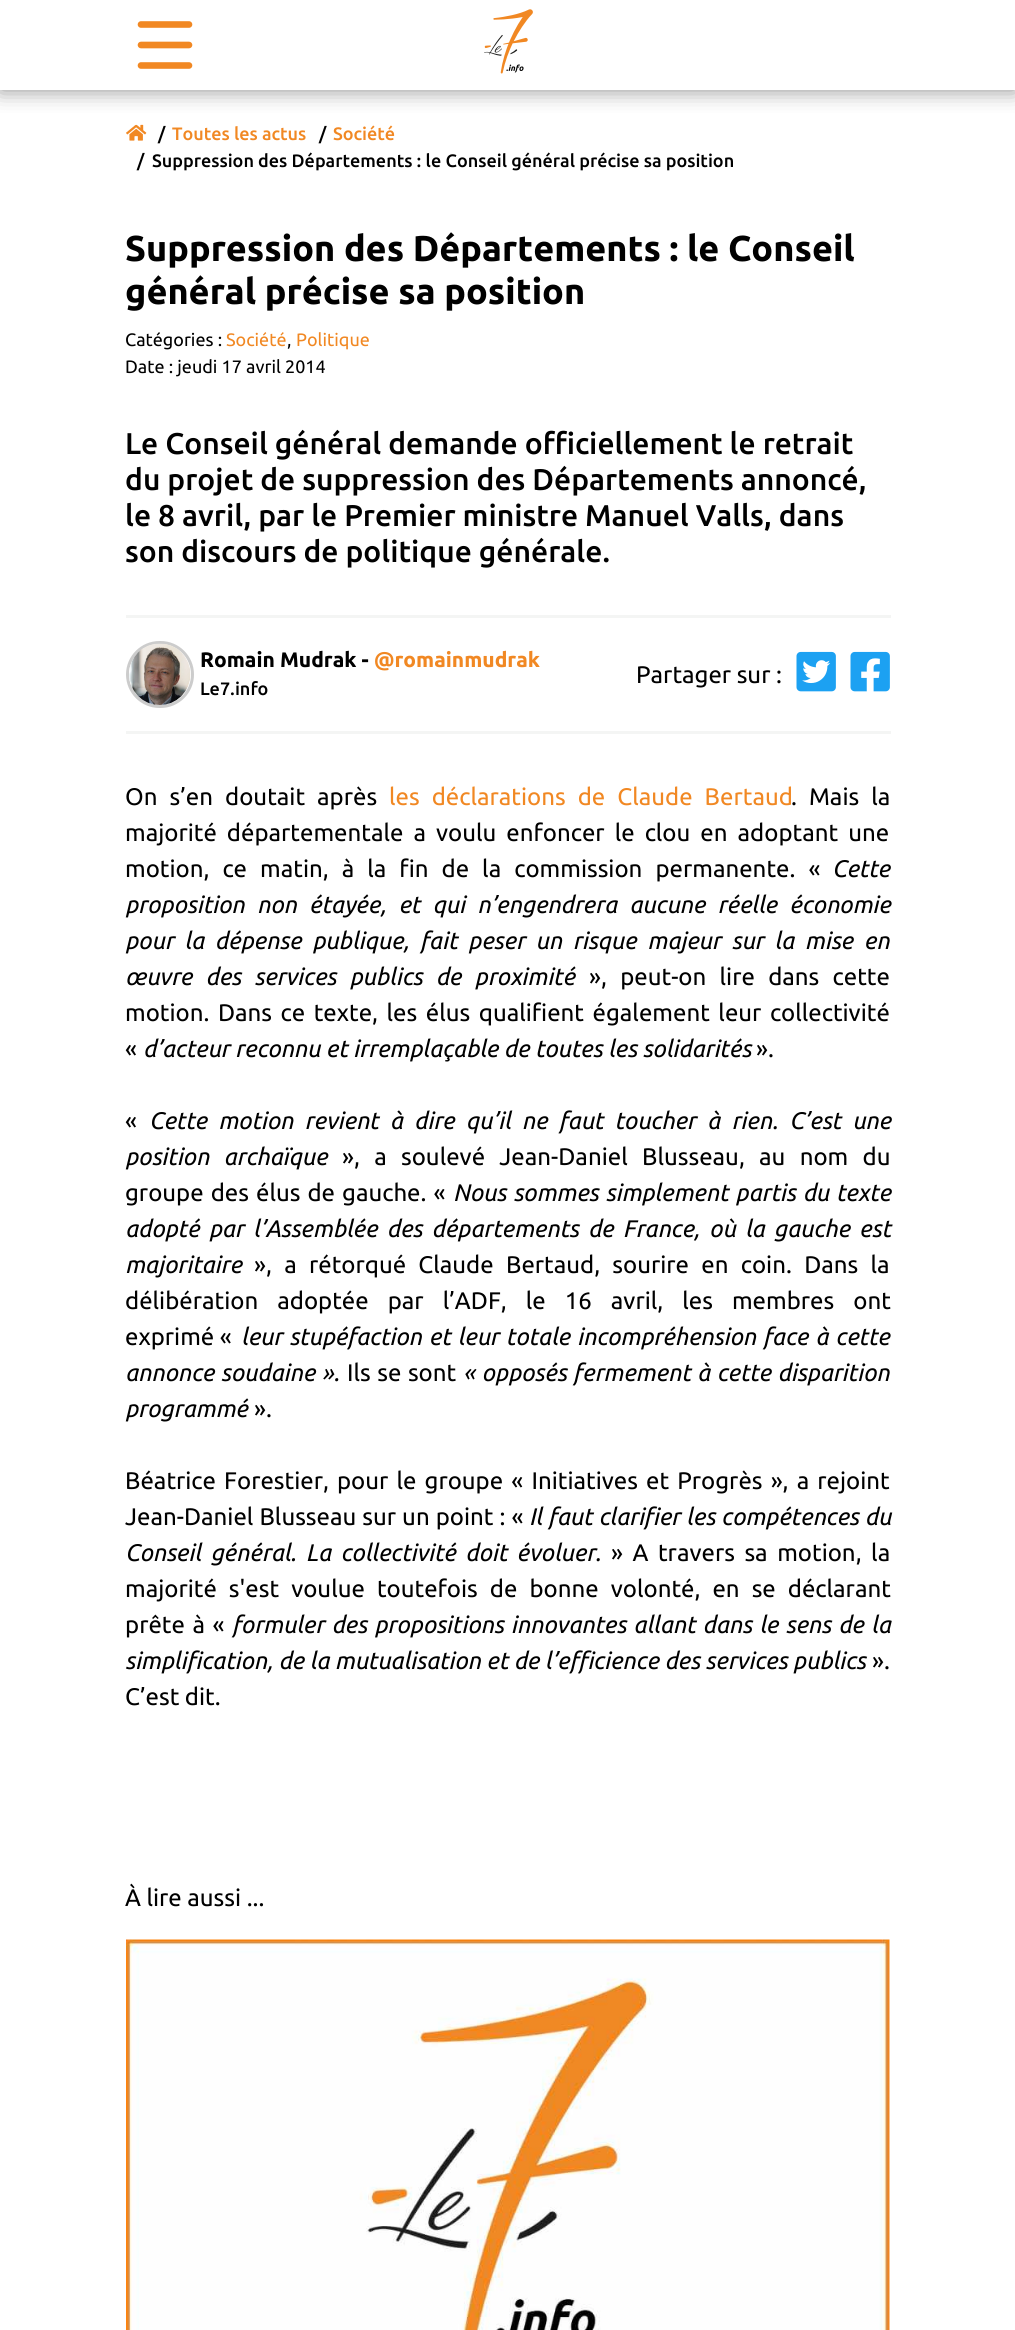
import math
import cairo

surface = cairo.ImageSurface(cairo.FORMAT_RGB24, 1015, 2330)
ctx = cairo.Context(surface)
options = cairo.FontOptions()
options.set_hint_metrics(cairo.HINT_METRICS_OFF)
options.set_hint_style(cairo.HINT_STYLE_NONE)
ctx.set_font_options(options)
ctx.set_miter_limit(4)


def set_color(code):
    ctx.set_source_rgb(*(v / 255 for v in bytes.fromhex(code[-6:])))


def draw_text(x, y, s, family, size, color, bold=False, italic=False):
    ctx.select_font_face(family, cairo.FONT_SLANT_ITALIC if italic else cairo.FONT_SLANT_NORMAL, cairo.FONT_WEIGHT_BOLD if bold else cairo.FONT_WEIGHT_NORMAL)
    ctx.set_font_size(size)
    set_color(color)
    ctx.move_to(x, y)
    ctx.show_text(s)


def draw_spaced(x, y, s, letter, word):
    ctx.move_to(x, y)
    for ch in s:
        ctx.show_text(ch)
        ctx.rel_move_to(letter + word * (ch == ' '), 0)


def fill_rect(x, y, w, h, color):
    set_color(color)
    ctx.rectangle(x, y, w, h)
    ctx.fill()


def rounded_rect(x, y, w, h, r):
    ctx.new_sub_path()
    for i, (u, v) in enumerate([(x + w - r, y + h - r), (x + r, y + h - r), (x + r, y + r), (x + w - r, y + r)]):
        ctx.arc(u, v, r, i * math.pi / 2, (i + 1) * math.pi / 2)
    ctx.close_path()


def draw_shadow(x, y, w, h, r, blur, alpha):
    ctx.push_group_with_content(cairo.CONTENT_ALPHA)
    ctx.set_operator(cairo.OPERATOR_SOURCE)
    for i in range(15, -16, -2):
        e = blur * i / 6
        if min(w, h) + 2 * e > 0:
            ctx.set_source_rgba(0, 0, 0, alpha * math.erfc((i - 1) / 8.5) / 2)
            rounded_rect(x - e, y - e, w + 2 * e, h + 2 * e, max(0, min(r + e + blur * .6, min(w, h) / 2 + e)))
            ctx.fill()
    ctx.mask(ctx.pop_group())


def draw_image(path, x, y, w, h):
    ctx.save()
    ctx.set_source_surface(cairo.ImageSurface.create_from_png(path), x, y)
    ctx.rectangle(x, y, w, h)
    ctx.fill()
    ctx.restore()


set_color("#ffffff")
ctx.paint()
ctx.save()
ctx.rectangle(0, 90, 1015, 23)
ctx.clip()
set_color("#8c8c8c")
draw_shadow(0, 0, 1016, 90, 0, 11, 1)
ctx.restore()
ctx.new_path()
ctx.move_to(141, 24.5)
ctx.line_to(189, 24.5)
ctx.move_to(141, 45)
ctx.line_to(189, 45)
ctx.move_to(189, 65.5)
ctx.line_to(141, 65.5)
set_color("#f18823")
ctx.set_line_width(6.6)
ctx.set_line_cap(cairo.LINE_CAP_ROUND)
ctx.stroke()
draw_image("assets/img1.png", 484, 9, 49, 65)
draw_image("assets/img2.png", 126, 124, 21, 17)
draw_text(158, 140, "/", "Ubuntu Medium", 18, "#000000")
draw_text(172, 140, "Toutes les actus", "Ubuntu Medium", 18, "#f18823")
draw_text(319, 140, "/", "Ubuntu Medium", 18, "#000000")
draw_text(333, 140, "Société", "Ubuntu Medium", 18, "#f18823")
draw_text(137, 167, "/", "Ubuntu Medium", 18, "#000000")
draw_text(152, 167, "Suppression des Départements : le Conseil général précise sa position", "Ubuntu Medium", 18, "#000000")
draw_text(125, 261, "Suppression des Départements : le Conseil", "Ubuntu", 36, "#000000", bold=True)
draw_text(125, 304, "général précise sa position", "Ubuntu", 36, "#000000", bold=True)
draw_text(125, 346, "Catégories :", "Ubuntu", 18, "#000000")
draw_text(226, 346, "Société", "Ubuntu", 18, "#f18823")
draw_text(287, 346, ",", "Ubuntu", 18, "#000000")
draw_text(296, 346, "Politique", "Ubuntu", 18, "#f18823")
draw_text(125, 373, "Date : jeudi 17 avril 2014", "Ubuntu", 18, "#000000")
draw_text(125, 454, "Le Conseil général demande officiellement le retrait", "Ubuntu Medium", 30, "#000000")
draw_text(125, 490, "du projet de suppression des Départements annoncé,", "Ubuntu Medium", 30, "#000000")
draw_text(125, 526, "le 8 avril, par le Premier ministre Manuel Valls, dans", "Ubuntu Medium", 30, "#000000")
draw_text(125, 562, "son discours de politique générale.", "Ubuntu Medium", 30, "#000000")
fill_rect(126, 615, 765, 3, "#f4f5f4")
fill_rect(126, 731, 765, 3, "#f4f5f4")
rounded_rect(127.5, 642.5, 65, 64, 32)
set_color("#cccccc")
ctx.set_line_width(3)
ctx.set_line_cap(cairo.LINE_CAP_BUTT)
ctx.stroke()
draw_image("assets/img3.png", 129, 643, 62, 62)
draw_text(200, 667, "Romain Mudrak -", "Ubuntu", 21, "#000000", bold=True)
draw_text(374, 667, "@romainmudrak", "Ubuntu", 21, "#f18823", bold=True)
draw_text(200, 695, "Le7.info", "Ubuntu Medium", 18, "#000000")
draw_text(636, 683, "Partager sur :", "Ubuntu", 24, "#000000")
draw_image("assets/img4.png", 796, 651, 40, 41)
draw_image("assets/img5.png", 850, 651, 40, 41)
draw_spaced(125, 805, "On s’en doutait après", 0, 6.5)
set_color("#f18823")
draw_spaced(389, 805, "les déclarations de Claude Bertaud", 0, 6.5)
set_color("#000000")
draw_spaced(791, 805, ". Mais la", 0, 6.5)
draw_spaced(125, 841, "majorité départementale a voulu enfoncer le clou en adoptant une", 0, 4.5)
draw_spaced(125, 877, "motion, ce matin, à la fin de la commission permanente. «", 0, 7.5)
draw_text(832, 877, "Cette", "Ubuntu", 24, "#000000", italic=True)
draw_text(125, 913, "proposition", "Ubuntu", 24, "#000000", italic=True)
draw_spaced(257, 913, "non étayée, et qui n’engendrera aucune réelle économie", 0, 6.75)
draw_spaced(125, 949, "pour la dépense publique, fait peser un risque majeur sur la mise en", 0, 5.25)
draw_spaced(125, 985, "œuvre des services publics de proximité", 0, 7.75)
ctx.select_font_face("Ubuntu")
draw_spaced(589, 985, "», peut-on lire dans cette", 0, 7.75)
draw_spaced(125, 1021, "motion. Dans ce texte, les élus qualifient également leur collectivité", 0, 3)
draw_text(125, 1057, "«", "Ubuntu", 24, "#000000")
draw_text(143, 1057, "d’acteur reconnu et irremplaçable de toutes les solidarités", "Ubuntu", 24, "#000000", italic=True)
draw_text(756, 1057, "».", "Ubuntu", 24, "#000000")
draw_text(125, 1129, "«", "Ubuntu", 24, "#000000")
ctx.select_font_face("Ubuntu", cairo.FONT_SLANT_ITALIC)
draw_spaced(149, 1129, "Cette motion revient à dire qu’il ne faut toucher à rien. C’est une", 0, 5.75)
draw_spaced(125, 1165, "position archaïque", 0, 8.75)
ctx.select_font_face("Ubuntu")
draw_spaced(342, 1165, "», a soulevé Jean-Daniel Blusseau, au nom du", 0, 8.75)
draw_spaced(125, 1201, "groupe des élus de gauche. «", 0, 1.5)
ctx.select_font_face("Ubuntu", cairo.FONT_SLANT_ITALIC)
draw_spaced(453, 1201, "Nous sommes simplement partis du texte", 0, 1.5)
draw_spaced(125, 1237, "adopté par l’Assemblée des départements de France, où la gauche est", 0, 3.75)
draw_text(125, 1273, "majoritaire", "Ubuntu", 24, "#000000", italic=True)
ctx.select_font_face("Ubuntu")
draw_spaced(254, 1273, "», a rétorqué Claude Bertaud, sourire en coin. Dans la", 0, 6.75)
draw_spaced(125, 1309, "délibération adoptée par l’ADF, le 16 avril, les membres ont", 0, 13.5)
draw_text(125, 1345, "exprimé «", "Ubuntu", 24, "#000000")
ctx.select_font_face("Ubuntu", cairo.FONT_SLANT_ITALIC)
draw_spaced(241, 1345, "leur stupéfaction et leur totale incompréhension face à cette", 0, 1.5)
draw_spaced(125, 1381, "annonce soudaine ».", 0, 1)
ctx.select_font_face("Ubuntu")
draw_spaced(347, 1381, "Ils se sont", 0, 1)
ctx.select_font_face("Ubuntu", cairo.FONT_SLANT_ITALIC)
draw_spaced(463, 1381, "« opposés fermement à cette disparition", 0, 1)
draw_text(125, 1417, "programmé", "Ubuntu", 24, "#000000", italic=True)
draw_text(254, 1417, "».", "Ubuntu", 24, "#000000")
draw_spaced(125, 1489, "Béatrice Forestier, pour le groupe « Initiatives et Progrès », a rejoint", 0, 2.6)
draw_spaced(125, 1525, "Jean-Daniel Blusseau sur un point : «", 0, 0.5)
ctx.select_font_face("Ubuntu", cairo.FONT_SLANT_ITALIC)
draw_spaced(529, 1525, "Il faut clarifier les compétences du", 0, 0.5)
draw_spaced(125, 1561, "Conseil général. La collectivité doit évoluer.", 0, 4)
ctx.select_font_face("Ubuntu")
draw_spaced(611, 1561, "» A travers sa motion, la", 0, 4)
draw_spaced(125, 1597, "majorité s'est voulue toutefois de bonne volonté, en se déclarant", 0, 6.5)
draw_spaced(125, 1633, "prête à «", 0, 2)
ctx.select_font_face("Ubuntu", cairo.FONT_SLANT_ITALIC)
draw_spaced(232, 1633, "formuler des propositions innovantes allant dans le sens de la", 0, 1.75)
draw_text(125, 1669, "simplification, de la mutualisation et de l’efficience des services publics", "Ubuntu", 24, "#000000", italic=True)
draw_text(872, 1669, "».", "Ubuntu", 24, "#000000")
draw_text(125, 1705, "C’est dit.", "Ubuntu", 24, "#000000")
draw_text(125, 1906, "À lire aussi ...", "Ubuntu", 24, "#000000")
draw_image("assets/img6.png", 126, 1939, 764, 391)
surface.write_to_png("output.png")
